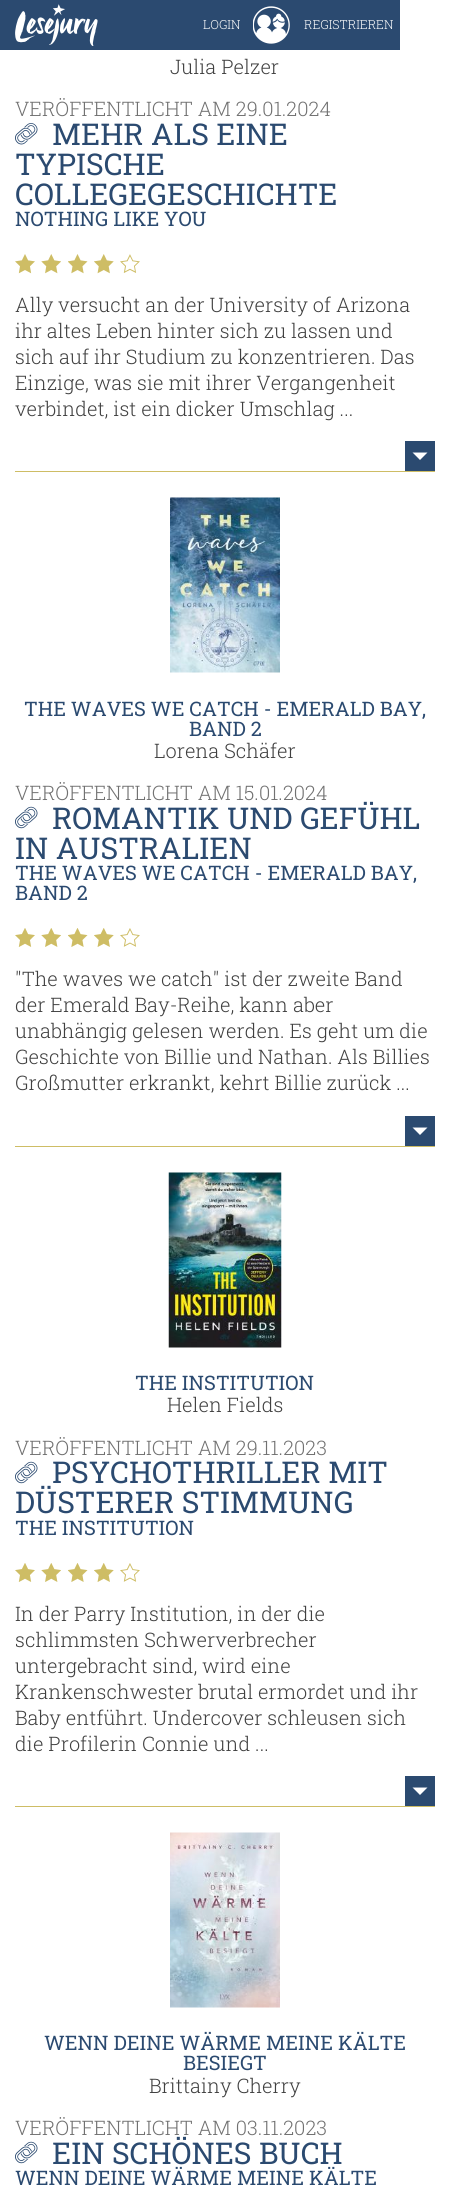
import math
import cairo

surface = cairo.ImageSurface(cairo.FORMAT_RGB24, 450, 2197)
ctx = cairo.Context(surface)
options = cairo.FontOptions()
options.set_hint_metrics(cairo.HINT_METRICS_OFF)
options.set_hint_style(cairo.HINT_STYLE_NONE)
ctx.set_font_options(options)
ctx.set_miter_limit(4)


def set_color(code):
    ctx.set_source_rgb(*(v / 255 for v in bytes.fromhex(code[-6:])))


def draw_text(x, y, s, family, size, color, bold=False, italic=False):
    ctx.select_font_face(family, cairo.FONT_SLANT_ITALIC if italic else cairo.FONT_SLANT_NORMAL, cairo.FONT_WEIGHT_BOLD if bold else cairo.FONT_WEIGHT_NORMAL)
    ctx.set_font_size(size)
    set_color(color)
    ctx.move_to(x, y)
    ctx.show_text(s)


def fill_rect(x, y, w, h, color):
    set_color(color)
    ctx.rectangle(x, y, w, h)
    ctx.fill()


def draw_image(path, x, y, w, h):
    ctx.save()
    ctx.set_source_surface(cairo.ImageSurface.create_from_png(path), x, y)
    ctx.rectangle(x, y, w, h)
    ctx.fill()
    ctx.restore()


set_color("#ffffff")
ctx.paint()
fill_rect(0, 0, 400, 50, "#2b4a70")
draw_image("assets/img1.png", 15, 4, 83, 42)
draw_text(203, 29, "LOGIN", "Roboto Slab Light", 12.5, "#ffffff")
draw_image("assets/img2.png", 253, 6, 37, 38)
draw_text(304, 29, "REGISTRIEREN", "Roboto Slab Light", 12.5, "#ffffff")
fill_rect(15, 471, 420, 1, "#cebd65")
draw_text(170, 74, "Julia Pelzer", "Roboto Slab Light", 20, "#404040")
draw_text(15, 116, "VERÖFFENTLICHT AM 29.01.2024", "Roboto Slab Light", 20, "#717171")
draw_image("assets/img3.png", 15, 123, 23, 22)
draw_text(52, 145, "MEHR ALS EINE", "Roboto Slab", 30, "#2b4a70")
draw_text(15, 175, "TYPISCHE", "Roboto Slab", 30, "#2b4a70")
draw_text(15, 205, "COLLEGEGESCHICHTE", "Roboto Slab", 30, "#2b4a70")
draw_text(15, 226, "NOTHING LIKE YOU", "Roboto Slab", 20, "#2b4a70")
draw_image("assets/img4.png", 15, 254, 20, 20)
draw_image("assets/img5.png", 41, 254, 20, 20)
draw_image("assets/img6.png", 68, 254, 20, 20)
draw_image("assets/img7.png", 94, 254, 20, 20)
draw_image("assets/img8.png", 120, 254, 20, 19)
draw_text(15, 312, "Ally versucht an der University of Arizona", "Roboto Slab Light", 20, "#404040")
draw_text(15, 338, "ihr altes Leben hinter sich zu lassen und", "Roboto Slab Light", 20, "#404040")
draw_text(15, 364, "sich auf ihr Studium zu konzentrieren. Das", "Roboto Slab Light", 20, "#404040")
draw_text(15, 390, "Einzige, was sie mit ihrer Vergangenheit", "Roboto Slab Light", 20, "#404040")
draw_text(15, 416, "verbindet, ist ein dicker Umschlag ...", "Roboto Slab Light", 20, "#404040")
fill_rect(405, 441, 30, 30, "#2b4a70")
set_color("#ffffff")
ctx.new_path()
ctx.move_to(412.5, 452.5)
ctx.line_to(427.5, 452.5)
ctx.line_to(420, 460)
ctx.close_path()
ctx.fill()
fill_rect(15, 1146, 420, 1, "#cebd65")
draw_image("assets/img9.png", 170, 497, 110, 176)
draw_text(24, 716, "THE WAVES WE CATCH - EMERALD BAY,", "Roboto Slab", 20, "#2b4a70")
draw_text(189, 736, "BAND 2", "Roboto Slab", 20, "#2b4a70")
draw_text(154, 758, "Lorena Schäfer", "Roboto Slab Light", 20, "#404040")
draw_text(15, 800, "VERÖFFENTLICHT AM 15.01.2024", "Roboto Slab Light", 20, "#717171")
draw_image("assets/img10.png", 15, 806, 23, 23)
draw_text(52, 829, "ROMANTIK UND GEFÜHL", "Roboto Slab", 30, "#2b4a70")
draw_text(15, 859, "IN AUSTRALIEN", "Roboto Slab", 30, "#2b4a70")
draw_text(15, 880, "THE WAVES WE CATCH - EMERALD BAY,", "Roboto Slab", 20, "#2b4a70")
draw_text(15, 900, "BAND 2", "Roboto Slab", 20, "#2b4a70")
draw_image("assets/img11.png", 15, 928, 20, 19)
draw_image("assets/img12.png", 41, 928, 20, 19)
draw_image("assets/img13.png", 68, 928, 20, 19)
draw_image("assets/img14.png", 94, 928, 20, 19)
draw_image("assets/img15.png", 120, 928, 20, 19)
draw_text(15, 986, "\"The waves we catch\" ist der zweite Band", "Roboto Slab Light", 20, "#404040")
draw_text(15, 1012, "der Emerald Bay-Reihe, kann aber", "Roboto Slab Light", 20, "#404040")
draw_text(15, 1038, "unabhängig gelesen werden. Es geht um die", "Roboto Slab Light", 20, "#404040")
draw_text(15, 1064, "Geschichte von Billie und Nathan. Als Billies", "Roboto Slab Light", 20, "#404040")
draw_text(15, 1090, "Großmutter erkrankt, kehrt Billie zurück ...", "Roboto Slab Light", 20, "#404040")
fill_rect(405, 1116, 30, 30, "#2b4a70")
set_color("#ffffff")
ctx.new_path()
ctx.move_to(412.5, 1127.5)
ctx.line_to(427.5, 1127.5)
ctx.line_to(420, 1135)
ctx.close_path()
ctx.fill()
fill_rect(15, 1806, 420, 1, "#cebd65")
draw_image("assets/img16.png", 168, 1172, 114, 176)
draw_text(135, 1390, "THE INSTITUTION", "Roboto Slab", 20, "#2b4a70")
draw_text(167, 1412, "Helen Fields", "Roboto Slab Light", 20, "#404040")
draw_text(15, 1455, "VERÖFFENTLICHT AM 29.11.2023", "Roboto Slab Light", 20, "#717171")
draw_image("assets/img10.png", 15, 1461, 23, 23)
draw_text(52, 1483, "PSYCHOTHRILLER MIT", "Roboto Slab", 30, "#2b4a70")
draw_text(15, 1513, "DÜSTERER STIMMUNG", "Roboto Slab", 30, "#2b4a70")
draw_text(15, 1535, "THE INSTITUTION", "Roboto Slab", 20, "#2b4a70")
draw_image("assets/img11.png", 15, 1563, 20, 19)
draw_image("assets/img12.png", 41, 1563, 20, 19)
draw_image("assets/img13.png", 68, 1563, 20, 19)
draw_image("assets/img14.png", 94, 1563, 20, 19)
draw_image("assets/img15.png", 120, 1563, 20, 19)
draw_text(15, 1621, "In der Parry Institution, in der die", "Roboto Slab Light", 20, "#404040")
draw_text(15, 1647, "schlimmsten Schwerverbrecher", "Roboto Slab Light", 20, "#404040")
draw_text(15, 1673, "untergebracht sind, wird eine", "Roboto Slab Light", 20, "#404040")
draw_text(15, 1699, "Krankenschwester brutal ermordet und ihr", "Roboto Slab Light", 20, "#404040")
draw_text(15, 1725, "Baby entführt. Undercover schleusen sich", "Roboto Slab Light", 20, "#404040")
draw_text(15, 1751, "die Profilerin Connie und ...", "Roboto Slab Light", 20, "#404040")
fill_rect(405, 1776, 30, 30, "#2b4a70")
set_color("#ffffff")
ctx.new_path()
ctx.move_to(412.5, 1787.5)
ctx.line_to(427.5, 1787.5)
ctx.line_to(420, 1795)
ctx.close_path()
ctx.fill()
draw_image("assets/img17.png", 170, 1832, 110, 176)
draw_text(44, 2050, "WENN DEINE WÄRME MEINE KÄLTE", "Roboto Slab", 20, "#2b4a70")
draw_text(183, 2070, "BESIEGT", "Roboto Slab", 20, "#2b4a70")
draw_text(149, 2093, "Brittainy Cherry", "Roboto Slab Light", 20, "#404040")
draw_text(15, 2135, "VERÖFFENTLICHT AM 03.11.2023", "Roboto Slab Light", 20, "#717171")
draw_image("assets/img10.png", 15, 2141, 23, 23)
draw_text(52, 2164, "EIN SCHÖNES BUCH", "Roboto Slab", 30, "#2b4a70")
draw_text(15, 2185, "WENN DEINE WÄRME MEINE KÄLTE", "Roboto Slab", 20, "#2b4a70")
surface.write_to_png("output.png")
